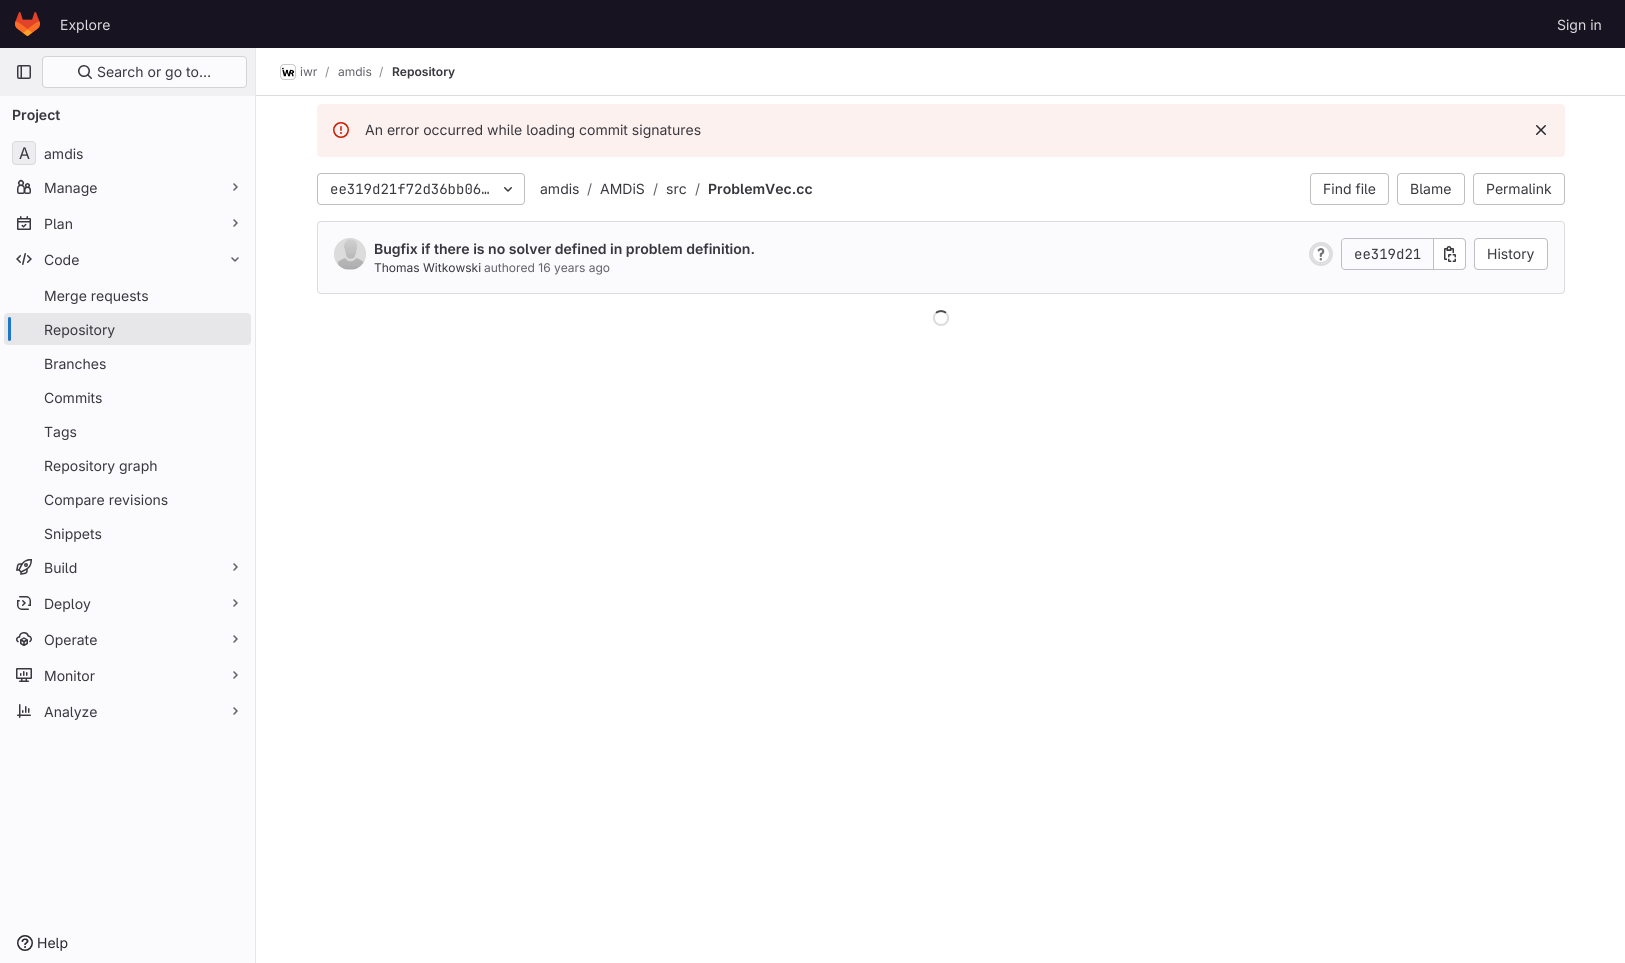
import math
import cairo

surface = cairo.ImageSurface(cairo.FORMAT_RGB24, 1625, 963)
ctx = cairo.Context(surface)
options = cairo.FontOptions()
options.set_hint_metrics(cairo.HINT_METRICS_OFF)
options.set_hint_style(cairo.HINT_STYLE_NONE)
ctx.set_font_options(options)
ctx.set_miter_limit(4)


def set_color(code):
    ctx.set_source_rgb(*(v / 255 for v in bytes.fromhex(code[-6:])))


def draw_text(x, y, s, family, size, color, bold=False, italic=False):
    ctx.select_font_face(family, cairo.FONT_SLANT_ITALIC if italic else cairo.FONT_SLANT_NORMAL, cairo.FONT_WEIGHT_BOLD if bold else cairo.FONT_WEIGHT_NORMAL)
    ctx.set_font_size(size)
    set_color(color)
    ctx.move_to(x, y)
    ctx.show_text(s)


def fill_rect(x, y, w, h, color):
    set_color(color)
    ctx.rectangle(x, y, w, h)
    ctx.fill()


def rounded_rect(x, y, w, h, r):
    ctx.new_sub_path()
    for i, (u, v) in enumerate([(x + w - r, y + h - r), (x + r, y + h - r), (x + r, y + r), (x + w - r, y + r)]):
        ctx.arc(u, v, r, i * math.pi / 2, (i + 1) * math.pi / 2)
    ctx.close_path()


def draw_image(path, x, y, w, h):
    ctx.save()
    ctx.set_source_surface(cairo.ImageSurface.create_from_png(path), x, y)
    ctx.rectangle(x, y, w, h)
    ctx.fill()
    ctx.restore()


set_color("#ffffff")
ctx.paint()
fill_rect(0, 0, 1625, 48, "#171321")
draw_image("assets/img1.png", 15, 12, 25, 24)
draw_text(60, 30, "Explore", "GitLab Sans", 14, "#dcdcde")
draw_text(1557, 30, "Sign in", "GitLab Sans", 14, "#dcdcde")
fill_rect(0, 96, 255, 867, "#fbfafd")
fill_rect(255, 48, 1, 915, "#e7e6e9")
fill_rect(0, 48, 255, 48, "#f1f0f3")
draw_image("assets/img2.png", 17, 65, 14, 14)
set_color("#fbfafd")
rounded_rect(42, 56, 205, 32, 4)
ctx.fill()
rounded_rect(42.5, 56.5, 204, 31, 3.5)
ctx.set_source_rgba(0.02, 0.02, 0.024, 0.16)
ctx.set_line_width(1)
ctx.stroke()
draw_image("assets/img3.png", 78, 65, 14, 14)
draw_text(97, 77, "Search or go to…", "GitLab Sans", 14, "#3a383f")
draw_text(12, 120, "Project", "GitLab Sans SemiBold", 14, "#3a383f")
set_color("#edecef")
rounded_rect(12, 141, 24, 24, 4)
ctx.fill()
rounded_rect(12.5, 141.5, 23, 23, 3.5)
ctx.set_source_rgba(0.02, 0.02, 0.024, 0.08)
ctx.stroke()
draw_text(19, 159, "A", "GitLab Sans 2", 16, "#3a383f")
draw_text(44, 159, "amdis", "GitLab Sans", 14, "#3a383f")
draw_image("assets/img4.png", 17, 179, 14, 15)
draw_text(44, 193, "Manage", "GitLab Sans", 14, "#3a383f")
ctx.new_path()
ctx.move_to(234, 184)
ctx.line_to(237, 187)
ctx.line_to(234, 190)
set_color("#626168")
ctx.set_line_width(1.5)
ctx.set_line_cap(cairo.LINE_CAP_ROUND)
ctx.set_line_join(cairo.LINE_JOIN_ROUND)
ctx.stroke()
draw_image("assets/img5.png", 17, 216, 14, 14)
draw_text(44, 229, "Plan", "GitLab Sans", 14, "#3a383f")
ctx.new_path()
ctx.move_to(234, 220)
ctx.line_to(237, 223)
ctx.line_to(234, 226)
set_color("#626168")
ctx.stroke()
draw_image("assets/img6.png", 16, 253, 16, 12)
draw_text(44, 265, "Code", "GitLab Sans", 14, "#3a383f")
ctx.new_path()
ctx.move_to(238, 258)
ctx.line_to(235, 261)
ctx.line_to(232, 258)
set_color("#626168")
ctx.stroke()
draw_text(44, 301, "Merge requests", "GitLab Sans", 14, "#3a383f")
set_color("#e7e6e9")
rounded_rect(4, 313, 247, 32, 4)
ctx.fill()
set_color("#1f75cb")
rounded_rect(8, 317, 3, 24, 1.5)
ctx.fill()
draw_text(44, 335, "Repository", "GitLab Sans", 14, "#3a383f")
draw_text(44, 369, "Branches", "GitLab Sans", 14, "#3a383f")
draw_text(44, 403, "Commits", "GitLab Sans", 14, "#3a383f")
draw_text(44, 437, "Tags", "GitLab Sans", 14, "#3a383f")
draw_text(44, 471, "Repository graph", "GitLab Sans", 14, "#3a383f")
draw_text(44, 505, "Compare revisions", "GitLab Sans", 14, "#3a383f")
draw_text(44, 539, "Snippets", "GitLab Sans", 14, "#3a383f")
draw_image("assets/img7.png", 16, 559, 16, 16)
draw_text(44, 573, "Build", "GitLab Sans", 14, "#3a383f")
ctx.new_path()
ctx.move_to(234, 564)
ctx.line_to(237, 567)
ctx.line_to(234, 570)
set_color("#626168")
ctx.stroke()
draw_image("assets/img8.png", 17, 596, 14, 14)
draw_text(44, 609, "Deploy", "GitLab Sans", 14, "#3a383f")
ctx.new_path()
ctx.move_to(234, 600)
ctx.line_to(237, 603)
ctx.line_to(234, 606)
set_color("#626168")
ctx.stroke()
draw_image("assets/img9.png", 16, 632, 16, 15)
draw_text(44, 645, "Operate", "GitLab Sans", 14, "#3a383f")
ctx.new_path()
ctx.move_to(234, 636)
ctx.line_to(237, 639)
ctx.line_to(234, 642)
set_color("#626168")
ctx.stroke()
draw_image("assets/img10.png", 16, 668, 16, 14)
draw_text(44, 681, "Monitor", "GitLab Sans", 14, "#3a383f")
ctx.new_path()
ctx.move_to(234, 672)
ctx.line_to(237, 675)
ctx.line_to(234, 678)
set_color("#626168")
ctx.stroke()
draw_image("assets/img11.png", 17, 704, 14, 14)
draw_text(44, 717, "Analyze", "GitLab Sans", 14, "#3a383f")
ctx.new_path()
ctx.move_to(234, 708)
ctx.line_to(237, 711)
ctx.line_to(234, 714)
set_color("#626168")
ctx.stroke()
draw_image("assets/img12.png", 17, 935, 16, 16)
draw_text(37, 948, "Help", "GitLab Sans", 14, "#28272d")
fill_rect(256, 95, 1369, 1, "#dcdcde")
rounded_rect(280.5, 64.5, 15, 15, 3.5)
ctx.set_line_width(1)
ctx.set_line_cap(cairo.LINE_CAP_BUTT)
ctx.set_line_join(cairo.LINE_JOIN_MITER)
ctx.stroke()
draw_image("assets/img13.png", 281, 67, 14, 10)
rounded_rect(280.5, 64.5, 15, 15, 3.5)
ctx.set_source_rgba(0.02, 0.02, 0.024, 0.08)
ctx.stroke()
draw_text(300, 76, "iwr", "GitLab Sans", 12, "#626168")
draw_text(325, 76, "/", "GitLab Sans", 12, "#89888d")
draw_text(338, 76, "amdis", "GitLab Sans", 12, "#626168")
draw_text(379, 76, "/", "GitLab Sans", 12, "#89888d")
draw_text(392, 76, "Repository", "GitLab Sans SemiBold", 12, "#3a383f")
set_color("#fcf1ef")
rounded_rect(317, 104, 1248, 53, 4)
ctx.fill()
draw_image("assets/img14.png", 333, 122, 16, 16)
draw_text(365, 135, "An error occurred while loading commit signatures", "GitLab Sans", 14, "#3a383f")
draw_image("assets/img15.png", 1536, 125, 10, 10)
rounded_rect(317.5, 173.5, 207, 31, 3.5)
set_color("#bfbfc3")
ctx.stroke()
draw_text(330, 194, "ee319d21f72d36bb06…", "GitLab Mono", 14, "#3a383f")
draw_image("assets/img16.png", 504, 187, 8, 5)
draw_text(540, 194, "amdis", "GitLab Sans", 14, "#3a383f")
draw_text(587, 194, "/", "GitLab Sans", 14, "#626168")
draw_text(600, 194, "AMDiS", "GitLab Sans", 14, "#3a383f")
draw_text(653, 194, "/", "GitLab Sans", 14, "#626168")
draw_text(666, 194, "src", "GitLab Sans", 14, "#3a383f")
draw_text(695, 194, "/", "GitLab Sans", 14, "#626168")
draw_text(708, 194, "ProblemVec.cc", "GitLab Sans SemiBold", 14, "#3a383f")
rounded_rect(1310.5, 173.5, 78, 31, 3.5)
set_color("#bfbfc3")
ctx.stroke()
draw_text(1323, 194, "Find file", "GitLab Sans", 14, "#3a383f")
rounded_rect(1397.5, 173.5, 67, 31, 3.5)
set_color("#bfbfc3")
ctx.stroke()
draw_text(1410, 194, "Blame", "GitLab Sans", 14, "#3a383f")
rounded_rect(1473.5, 173.5, 91, 31, 3.5)
set_color("#bfbfc3")
ctx.stroke()
draw_text(1486, 194, "Permalink", "GitLab Sans", 14, "#3a383f")
set_color("#fbfafd")
rounded_rect(317.5, 221.5, 1247, 72, 3.5)
ctx.fill_preserve()
set_color("#dcdcde")
ctx.stroke()
ctx.arc(350, 254, 15.5, 0, 2 * math.pi)
set_color("#e7e6e9")
ctx.stroke()
draw_image("assets/img17.png", 334, 238, 32, 32)
draw_text(374, 254, "Bugfix if there is no solver defined in problem definition.", "GitLab Sans SemiBold", 14, "#3a383f")
draw_text(374, 272, "Thomas Witkowski", "GitLab Sans", 12, "#3a383f")
draw_text(484, 272, "authored 16 years ago", "GitLab Sans", 12, "#626168")
ctx.new_path()
ctx.arc(1321, 254, 11, 0, 2 * math.pi)
set_color("#dcdcde")
ctx.set_line_width(2)
ctx.stroke()
set_color("#ffffff")
ctx.arc(1321, 254, 9, 0, 2 * math.pi)
ctx.fill_preserve()
set_color("#dcdcde")
ctx.stroke()
draw_image("assets/img18.png", 1317, 248, 8, 13)
set_color("#bfbfc3")
ctx.set_fill_rule(cairo.FILL_RULE_EVEN_ODD)
ctx.new_path()
ctx.move_to(1345, 238)
ctx.line_to(1433, 238)
ctx.line_to(1433, 270)
ctx.line_to(1345, 270)
ctx.curve_to(1343, 270, 1341, 268, 1341, 266)
ctx.line_to(1341, 242)
ctx.curve_to(1341, 240, 1343, 238, 1345, 238)
ctx.close_path()
ctx.move_to(1345, 239)
ctx.line_to(1433, 239)
ctx.line_to(1433, 269)
ctx.line_to(1345, 269)
ctx.curve_to(1343, 269, 1342, 268, 1342, 266)
ctx.line_to(1342, 242)
ctx.curve_to(1342, 240, 1343, 239, 1345, 239)
ctx.close_path()
ctx.fill()
draw_text(1354, 259, "ee319d21", "GitLab Mono", 14, "#3a383f")
set_color("#ffffff")
ctx.new_path()
ctx.move_to(1434, 239)
ctx.line_to(1462, 239)
ctx.curve_to(1463.5, 239, 1465, 240.5, 1465, 242)
ctx.line_to(1465, 266)
ctx.curve_to(1465, 267.5, 1463.5, 269, 1462, 269)
ctx.line_to(1434, 269)
ctx.close_path()
ctx.fill()
set_color("#bfbfc3")
ctx.new_path()
ctx.move_to(1434, 238)
ctx.line_to(1462, 238)
ctx.curve_to(1464, 238, 1466, 240, 1466, 242)
ctx.line_to(1466, 266)
ctx.curve_to(1466, 268, 1464, 270, 1462, 270)
ctx.line_to(1434, 270)
ctx.close_path()
ctx.move_to(1434, 239)
ctx.line_to(1462, 239)
ctx.curve_to(1463.5, 239, 1465, 240.5, 1465, 242)
ctx.line_to(1465, 266)
ctx.curve_to(1465, 267.5, 1463.5, 269, 1462, 269)
ctx.line_to(1434, 269)
ctx.close_path()
ctx.fill()
fill_rect(1433, 238, 1, 32, "#bfbfc3")
draw_image("assets/img19.png", 1444, 246, 12, 16)
set_color("#ffffff")
rounded_rect(1474.5, 238.5, 73, 31, 3.5)
ctx.fill_preserve()
set_color("#bfbfc3")
ctx.set_line_width(1)
ctx.stroke()
draw_text(1487, 259, "History", "GitLab Sans", 14, "#3a383f")
ctx.new_path()
ctx.move_to(936, 313)
ctx.curve_to(938.5, 310.5, 943.5, 310.5, 946, 313)
set_color("#4c4b51")
ctx.set_line_width(2)
ctx.stroke()
ctx.new_path()
ctx.move_to(946, 313)
ctx.curve_to(947.5, 314.5, 948.5, 317, 948, 319.5)
ctx.curve_to(946, 327.5, 934, 326.5, 934, 318)
ctx.curve_to(934, 316, 934.5, 314.5, 936, 313)
set_color("#dcdcde")
ctx.stroke()
surface.write_to_png("output.png")
